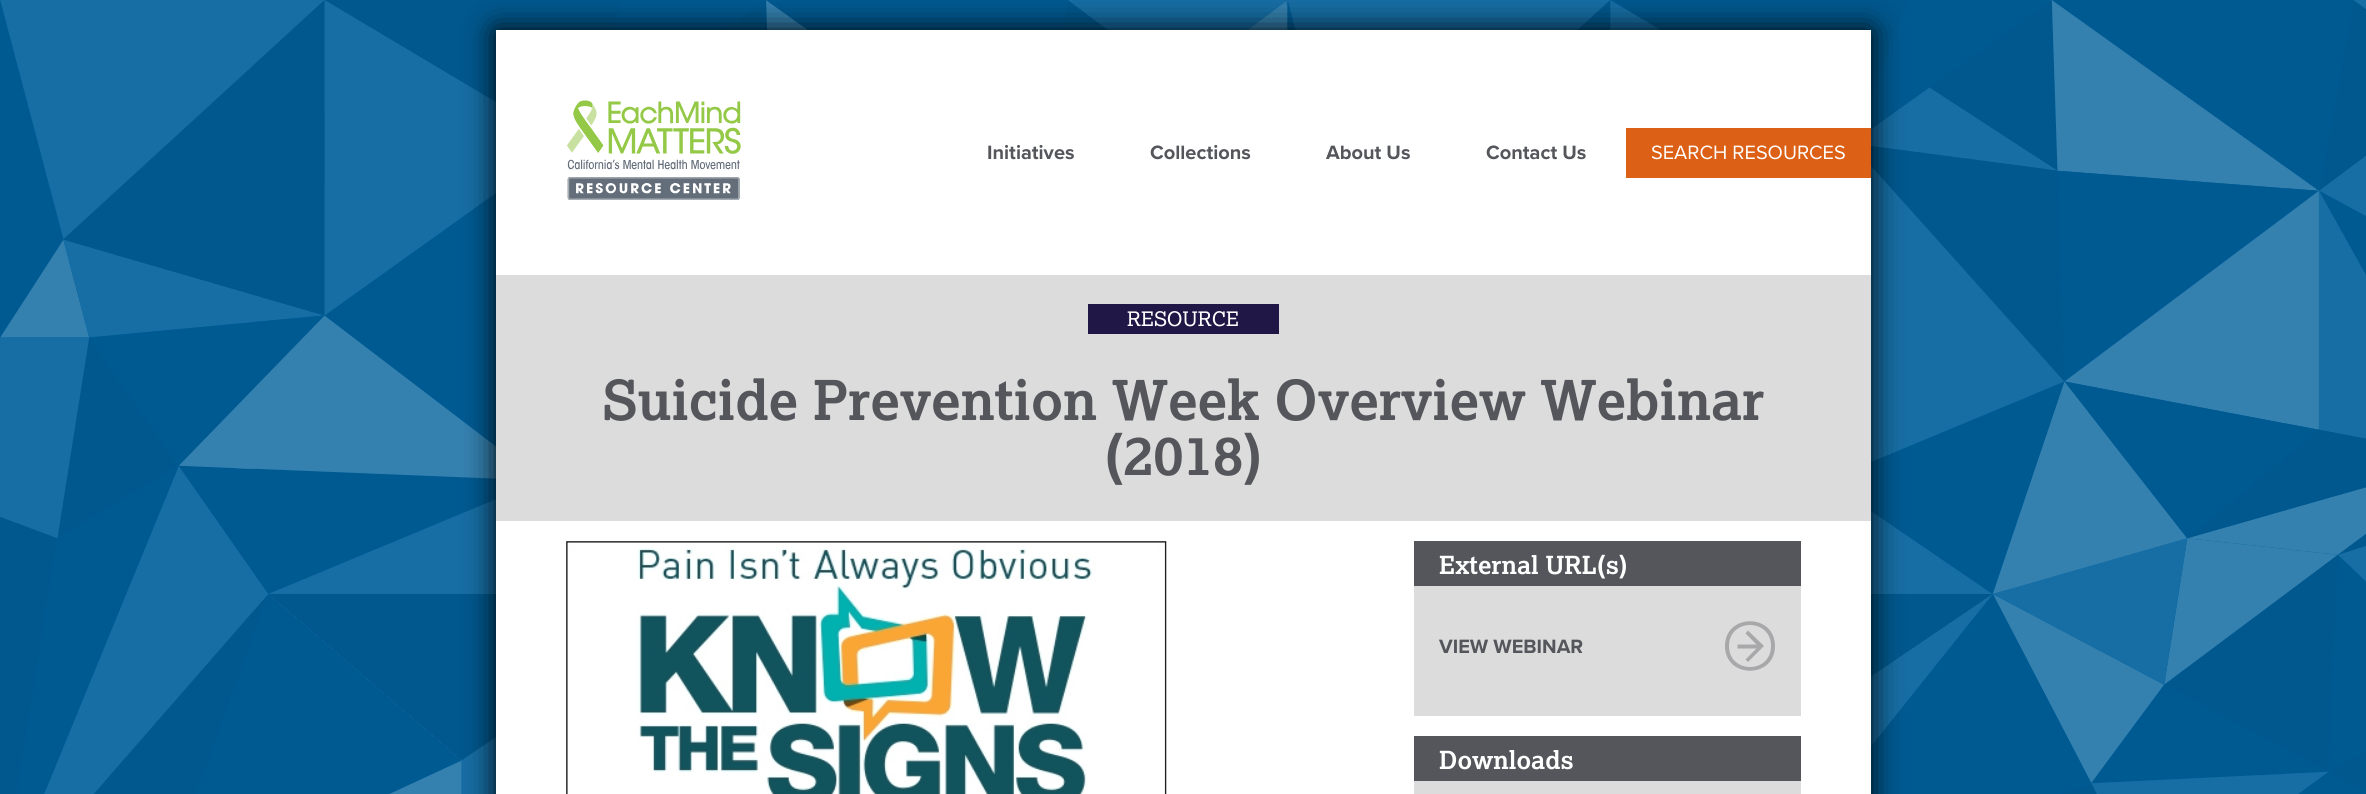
import math
import cairo

surface = cairo.ImageSurface(cairo.FORMAT_RGB24, 2366, 794)
ctx = cairo.Context(surface)
options = cairo.FontOptions()
options.set_hint_metrics(cairo.HINT_METRICS_OFF)
options.set_hint_style(cairo.HINT_STYLE_NONE)
ctx.set_font_options(options)
ctx.set_miter_limit(4)


def set_color(code):
    ctx.set_source_rgb(*(v / 255 for v in bytes.fromhex(code[-6:])))


def draw_text(x, y, s, family, size, color, bold=False, italic=False):
    ctx.select_font_face(family, cairo.FONT_SLANT_ITALIC if italic else cairo.FONT_SLANT_NORMAL, cairo.FONT_WEIGHT_BOLD if bold else cairo.FONT_WEIGHT_NORMAL)
    ctx.set_font_size(size)
    set_color(color)
    ctx.move_to(x, y)
    ctx.show_text(s)


def fill_rect(x, y, w, h, color):
    set_color(color)
    ctx.rectangle(x, y, w, h)
    ctx.fill()


def rounded_rect(x, y, w, h, r):
    ctx.new_sub_path()
    for i, (u, v) in enumerate([(x + w - r, y + h - r), (x + r, y + h - r), (x + r, y + r), (x + w - r, y + r)]):
        ctx.arc(u, v, r, i * math.pi / 2, (i + 1) * math.pi / 2)
    ctx.close_path()


def draw_shadow(x, y, w, h, r, blur, alpha):
    ctx.push_group_with_content(cairo.CONTENT_ALPHA)
    ctx.set_operator(cairo.OPERATOR_SOURCE)
    for i in range(15, -16, -2):
        e = blur * i / 6
        if min(w, h) + 2 * e > 0:
            ctx.set_source_rgba(0, 0, 0, alpha * math.erfc((i - 1) / 8.5) / 2)
            rounded_rect(x - e, y - e, w + 2 * e, h + 2 * e, max(0, min(r + e + blur * .6, min(w, h) / 2 + e)))
            ctx.fill()
    ctx.mask(ctx.pop_group())


def draw_image(path, x, y, w, h):
    ctx.save()
    ctx.set_source_surface(cairo.ImageSurface.create_from_png(path), x, y)
    ctx.rectangle(x, y, w, h)
    ctx.fill()
    ctx.restore()


set_color("#ffffff")
ctx.paint()
draw_image("assets/img1.png", 0, 0, 2366, 794)
set_color("#000000")
draw_shadow(496, 30, 1375, 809, 0, 15, 1)
fill_rect(496, 30, 1375, 764, "#ffffff")
draw_image("assets/img2.png", 567, 100, 174, 100)
draw_text(987, 159, "Initiatives", "Proxima Nova", 20, "#54565b", bold=True)
draw_text(1150, 159, "Collections", "Proxima Nova", 20, "#54565b", bold=True)
draw_text(1326, 159, "About Us", "Proxima Nova", 20, "#54565b", bold=True)
draw_text(1486, 159, "Contact Us", "Proxima Nova", 20, "#54565b", bold=True)
fill_rect(1626, 128, 245, 50, "#dc6016")
draw_text(1651, 159, "SEARCH RESOURCES", "Proxima Nova", 20, "#ffffff")
fill_rect(496, 275, 1375, 246, "#dcdcdc")
fill_rect(1088, 304, 191, 30, "#201747")
draw_text(1127, 326, "RESOURCE", "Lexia", 20, "#ffffff")
draw_text(602, 420, "Suicide Prevention Week Overview Webinar", "Lexia", 55, "#54565b", bold=True)
draw_text(1104, 475, "(2018)", "Lexia", 55, "#54565b", bold=True)
draw_image("assets/img3.png", 566, 541, 601, 253)
fill_rect(1414, 541, 387, 45, "#54565b")
draw_text(1439, 574, "External URL(s)", "Lexia", 25, "#ffffff", bold=True)
fill_rect(1414, 586, 387, 130, "#dcdcdc")
set_color("#a8a8aa")
ctx.new_path()
ctx.move_to(1729, 646)
ctx.curve_to(1729, 618, 1771, 618, 1771, 646)
ctx.curve_to(1771, 674, 1729, 674, 1729, 646)
ctx.move_to(1725, 646)
ctx.curve_to(1725, 679, 1775, 679, 1775, 646)
ctx.curve_to(1775, 613, 1725, 613, 1725, 646)
ctx.close_path()
ctx.fill()
ctx.new_path()
ctx.move_to(1748, 630.5)
ctx.line_to(1745.5, 633.5)
ctx.line_to(1756.5, 644.5)
ctx.line_to(1737.5, 644.5)
ctx.line_to(1737.5, 648.5)
ctx.line_to(1756.5, 648.5)
ctx.line_to(1745.5, 659.5)
ctx.line_to(1748, 662)
ctx.line_to(1764, 646)
ctx.close_path()
ctx.fill()
draw_text(1439, 653, "VIEW WEBINAR", "Proxima Nova", 20, "#54565b", bold=True)
fill_rect(1414, 736, 387, 45, "#54565b")
draw_text(1439, 769, "Downloads", "Lexia", 25, "#ffffff", bold=True)
fill_rect(1414, 781, 387, 13, "#dcdcdc")
surface.write_to_png("output.png")
